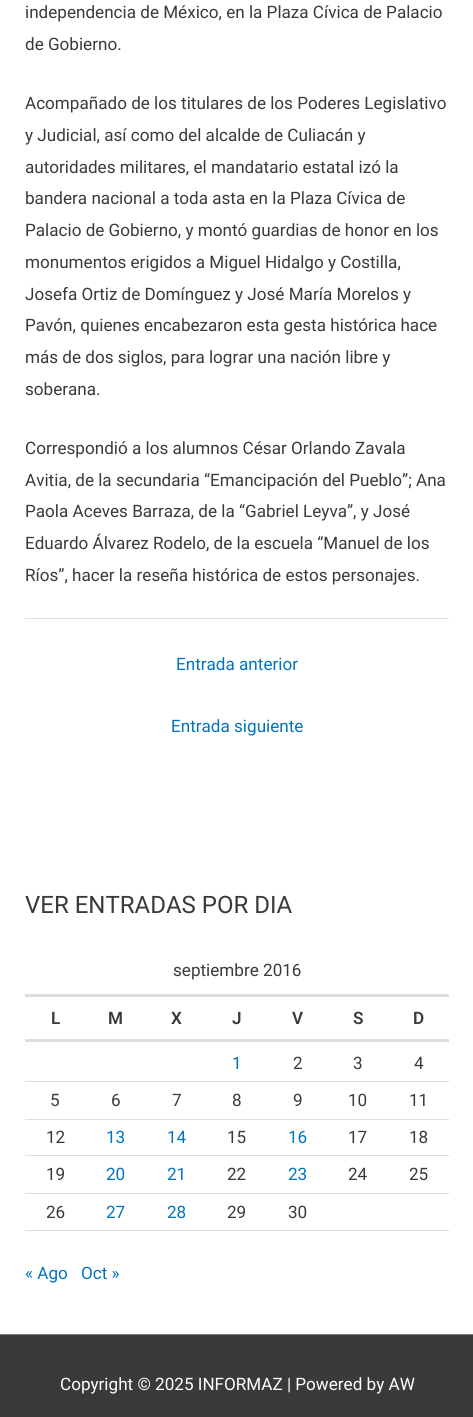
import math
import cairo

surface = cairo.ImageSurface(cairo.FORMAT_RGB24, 473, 1417)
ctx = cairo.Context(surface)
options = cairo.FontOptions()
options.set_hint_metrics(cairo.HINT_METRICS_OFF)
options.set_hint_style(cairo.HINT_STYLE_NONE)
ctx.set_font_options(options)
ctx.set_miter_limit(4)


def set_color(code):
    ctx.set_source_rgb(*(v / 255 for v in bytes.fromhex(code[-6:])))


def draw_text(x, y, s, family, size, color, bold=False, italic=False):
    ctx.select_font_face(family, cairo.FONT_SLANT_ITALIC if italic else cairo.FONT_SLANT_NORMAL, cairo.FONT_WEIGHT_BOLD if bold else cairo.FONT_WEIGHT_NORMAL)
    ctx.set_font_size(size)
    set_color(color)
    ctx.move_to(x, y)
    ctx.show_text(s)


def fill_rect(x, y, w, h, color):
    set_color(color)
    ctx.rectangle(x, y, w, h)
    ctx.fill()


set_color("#ffffff")
ctx.paint()
draw_text(25, 18, "independencia de México, en la Plaza Cívica de Palacio", "Roboto", 17.1, "#3a3a3a")
draw_text(25, 50, "de Gobierno.", "Roboto", 17.1, "#3a3a3a")
draw_text(25, 109, "Acompañado de los titulares de los Poderes Legislativo", "Roboto", 17.1, "#3a3a3a")
draw_text(25, 141, "y Judicial, así como del alcalde de Culiacán y", "Roboto", 17.1, "#3a3a3a")
draw_text(25, 173, "autoridades militares, el mandatario estatal izó la", "Roboto", 17.1, "#3a3a3a")
draw_text(25, 204, "bandera nacional a toda asta en la Plaza Cívica de", "Roboto", 17.1, "#3a3a3a")
draw_text(25, 236, "Palacio de Gobierno, y montó guardias de honor en los", "Roboto", 17.1, "#3a3a3a")
draw_text(25, 268, "monumentos erigidos a Miguel Hidalgo y Costilla,", "Roboto", 17.1, "#3a3a3a")
draw_text(25, 300, "Josefa Ortiz de Domínguez y José María Morelos y", "Roboto", 17.1, "#3a3a3a")
draw_text(25, 331, "Pavón, quienes encabezaron esta gesta histórica hace", "Roboto", 17.1, "#3a3a3a")
draw_text(25, 363, "más de dos siglos, para lograr una nación libre y", "Roboto", 17.1, "#3a3a3a")
draw_text(25, 395, "soberana.", "Roboto", 17.1, "#3a3a3a")
draw_text(25, 454, "Correspondió a los alumnos César Orlando Zavala", "Roboto", 17.1, "#3a3a3a")
draw_text(25, 486, "Avitia, de la secundaria “Emancipación del Pueblo”; Ana", "Roboto", 17.1, "#3a3a3a")
draw_text(25, 517, "Paola Aceves Barraza, de la “Gabriel Leyva”, y José", "Roboto", 17.1, "#3a3a3a")
draw_text(25, 549, "Eduardo Álvarez Rodelo, de la escuela “Manuel de los", "Roboto", 17.1, "#3a3a3a")
draw_text(25, 581, "Ríos”, hacer la reseña histórica de estos personajes.", "Roboto", 17.1, "#3a3a3a")
fill_rect(25, 618, 424, 1, "#dddddd")
draw_text(176, 670, "Entrada anterior", "Roboto", 17.1, "#0274be")
draw_text(171, 732, "Entrada siguiente", "Roboto", 17.1, "#0274be")
draw_text(25, 913, "VER ENTRADAS POR DIA", "Roboto", 24, "#3a3a3a")
draw_text(173, 976, "septiembre 2016", "Roboto", 17.1, "#3a3a3a")
fill_rect(25, 994, 424, 3, "#dddddd")
fill_rect(25, 1039, 424, 3, "#dddddd")
draw_text(51, 1024, "L", "Roboto SemiBold", 17.1, "#3a3a3a")
draw_text(108, 1024, "M", "Roboto SemiBold", 17.1, "#3a3a3a")
draw_text(171, 1024, "X", "Roboto SemiBold", 17.1, "#3a3a3a")
draw_text(232, 1024, "J", "Roboto SemiBold", 17.1, "#3a3a3a")
draw_text(292, 1024, "V", "Roboto SemiBold", 17.1, "#3a3a3a")
draw_text(353, 1024, "S", "Roboto SemiBold", 17.1, "#3a3a3a")
draw_text(413, 1024, "D", "Roboto SemiBold", 17.1, "#3a3a3a")
draw_text(232, 1069, "1", "Roboto", 17.1, "#0274be")
draw_text(293, 1069, "2", "Roboto", 17.1, "#3a3a3a")
draw_text(353, 1069, "3", "Roboto", 17.1, "#3a3a3a")
draw_text(414, 1069, "4", "Roboto", 17.1, "#3a3a3a")
fill_rect(25, 1081, 424, 1, "#dddddd")
fill_rect(25, 1119, 424, 1, "#dddddd")
draw_text(50, 1106, "5", "Roboto", 17.1, "#3a3a3a")
draw_text(111, 1106, "6", "Roboto", 17.1, "#3a3a3a")
draw_text(172, 1106, "7", "Roboto", 17.1, "#3a3a3a")
draw_text(232, 1106, "8", "Roboto", 17.1, "#3a3a3a")
draw_text(293, 1106, "9", "Roboto", 17.1, "#3a3a3a")
draw_text(348, 1106, "10", "Roboto", 17.1, "#3a3a3a")
draw_text(409, 1106, "11", "Roboto", 17.1, "#3a3a3a")
fill_rect(25, 1155, 424, 1, "#dddddd")
draw_text(46, 1143, "12", "Roboto", 17.1, "#3a3a3a")
draw_text(106, 1143, "13", "Roboto", 17.1, "#0274be")
draw_text(167, 1143, "14", "Roboto", 17.1, "#0274be")
draw_text(227, 1143, "15", "Roboto", 17.1, "#3a3a3a")
draw_text(288, 1143, "16", "Roboto", 17.1, "#0274be")
draw_text(348, 1143, "17", "Roboto", 17.1, "#3a3a3a")
draw_text(409, 1143, "18", "Roboto", 17.1, "#3a3a3a")
fill_rect(25, 1193, 424, 1, "#dddddd")
draw_text(46, 1180, "19", "Roboto", 17.1, "#3a3a3a")
draw_text(106, 1180, "20", "Roboto", 17.1, "#0274be")
draw_text(167, 1180, "21", "Roboto", 17.1, "#0274be")
draw_text(227, 1180, "22", "Roboto", 17.1, "#3a3a3a")
draw_text(288, 1180, "23", "Roboto", 17.1, "#0274be")
draw_text(348, 1180, "24", "Roboto", 17.1, "#3a3a3a")
draw_text(409, 1180, "25", "Roboto", 17.1, "#3a3a3a")
fill_rect(25, 1230, 424, 1, "#dddddd")
draw_text(46, 1218, "26", "Roboto", 17.1, "#3a3a3a")
draw_text(106, 1218, "27", "Roboto", 17.1, "#0274be")
draw_text(167, 1218, "28", "Roboto", 17.1, "#0274be")
draw_text(227, 1218, "29", "Roboto", 17.1, "#3a3a3a")
draw_text(288, 1218, "30", "Roboto", 17.1, "#3a3a3a")
draw_text(25, 1279, "« Ago", "Roboto", 17.1, "#0274be")
draw_text(81, 1279, "Oct »", "Roboto", 17.1, "#0274be")
fill_rect(0, 1334, 473, 1, "#7a7a7a")
fill_rect(0, 1335, 473, 82, "#3a3a3a")
draw_text(60, 1390, "Copyright © 2025 INFORMAZ | Powered by AW", "Roboto", 17.1, "#ffffff")
surface.write_to_png("output.png")
